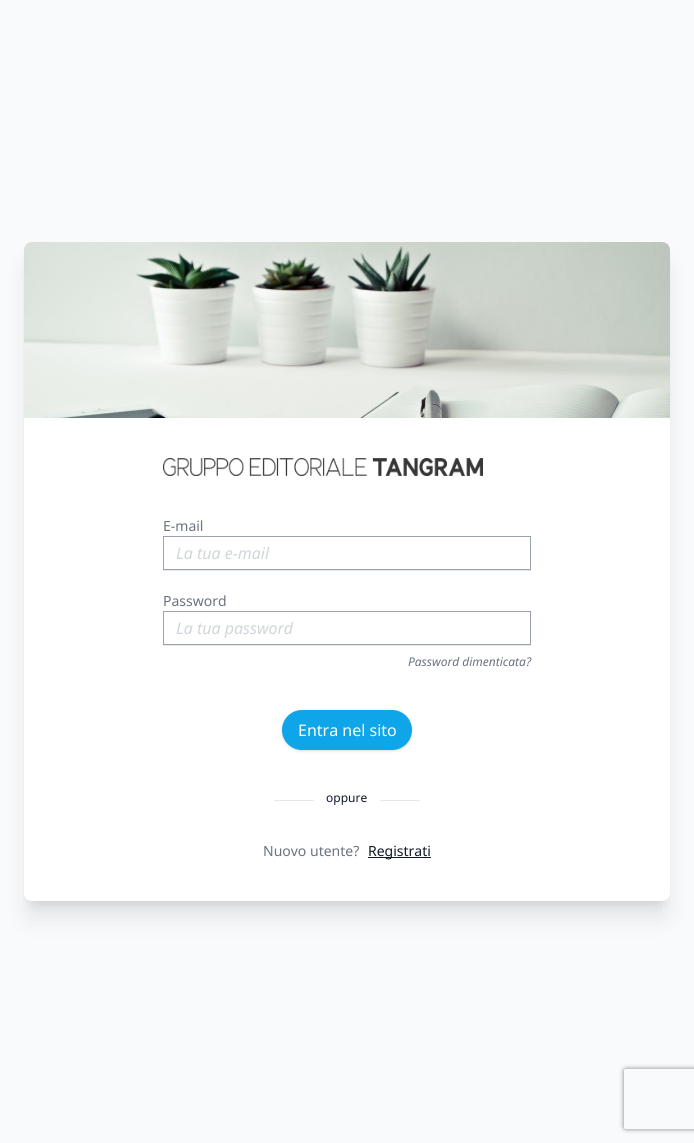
import math
import cairo

surface = cairo.ImageSurface(cairo.FORMAT_RGB24, 694, 1143)
ctx = cairo.Context(surface)
options = cairo.FontOptions()
options.set_hint_metrics(cairo.HINT_METRICS_OFF)
options.set_hint_style(cairo.HINT_STYLE_NONE)
ctx.set_font_options(options)
ctx.set_miter_limit(4)


def set_color(code):
    ctx.set_source_rgb(*(v / 255 for v in bytes.fromhex(code[-6:])))


def draw_text(x, y, s, family, size, color, bold=False, italic=False):
    ctx.select_font_face(family, cairo.FONT_SLANT_ITALIC if italic else cairo.FONT_SLANT_NORMAL, cairo.FONT_WEIGHT_BOLD if bold else cairo.FONT_WEIGHT_NORMAL)
    ctx.set_font_size(size)
    set_color(color)
    ctx.move_to(x, y)
    ctx.show_text(s)


def fill_rect(x, y, w, h, color):
    set_color(color)
    ctx.rectangle(x, y, w, h)
    ctx.fill()


def rounded_rect(x, y, w, h, r):
    ctx.new_sub_path()
    for i, (u, v) in enumerate([(x + w - r, y + h - r), (x + r, y + h - r), (x + r, y + r), (x + w - r, y + r)]):
        ctx.arc(u, v, r, i * math.pi / 2, (i + 1) * math.pi / 2)
    ctx.close_path()


def draw_shadow(x, y, w, h, r, blur, alpha):
    ctx.push_group_with_content(cairo.CONTENT_ALPHA)
    ctx.set_operator(cairo.OPERATOR_SOURCE)
    for i in range(15, -16, -2):
        e = blur * i / 6
        if min(w, h) + 2 * e > 0:
            ctx.set_source_rgba(0, 0, 0, alpha * math.erfc((i - 1) / 8.5) / 2)
            rounded_rect(x - e, y - e, w + 2 * e, h + 2 * e, max(0, min(r + e + blur * .6, min(w, h) / 2 + e)))
            ctx.fill()
    ctx.mask(ctx.pop_group())


def draw_image(path, x, y, w, h):
    ctx.save()
    ctx.set_source_surface(cairo.ImageSurface.create_from_png(path), x, y)
    ctx.rectangle(x, y, w, h)
    ctx.fill()
    ctx.restore()


set_color("#f9fafb")
ctx.paint()
set_color("#000000")
draw_shadow(30, 256, 634, 647, 2, 5, 0.1)
draw_shadow(29, 267, 636, 649, 3, 12.5, 0.1)
set_color("#ffffff")
rounded_rect(24, 242, 646, 659, 8)
ctx.fill()
draw_image("assets/img1.png", 24, 242, 646, 176)
draw_image("assets/img2.png", 163, 458, 320, 18)
fill_rect(163, 570, 368, 1, "#e5e7eb")
draw_text(163, 531, "E-mail", "Noto Sans", 14, "#6b7280")
ctx.rectangle(163.5, 536.5, 367, 33)
set_color("#9ca3af")
ctx.set_line_width(1)
ctx.stroke()
draw_text(176, 559, "La tua e-mail", "Noto Sans", 16, "#d1d5db", italic=True)
fill_rect(163, 645, 368, 1, "#e5e7eb")
draw_text(163, 606, "Password", "Noto Sans", 14, "#6b7280")
ctx.rectangle(163.5, 611.5, 367, 33)
set_color("#9ca3af")
ctx.stroke()
draw_text(176, 634, "La tua password", "Noto Sans", 16, "#d1d5db", italic=True)
draw_text(408, 666, "Password dimenticata?", "Noto Sans", 12, "#6b7280", italic=True)
set_color("#000000")
draw_shadow(283, 712, 128, 38, 19, 1, 0.1)
draw_shadow(282, 711, 130, 40, 20, 1.5, 0.1)
set_color("#0ea5e9")
rounded_rect(282, 710, 130, 40, 20)
ctx.fill()
draw_text(298, 736, "Entra nel sito", "Noto Sans", 16, "#ffffff")
fill_rect(274, 800, 146, 1, "#e5e7eb")
fill_rect(314, 800, 66, 1, "#ffffff")
draw_text(326, 802, "oppure", "Noto Sans", 12, "#111827")
draw_text(263, 856, "Nuovo utente?", "Noto Sans", 14, "#6b7280")
fill_rect(368, 857, 63, 1, "#111827")
draw_text(368, 856, "Registrati", "Noto Sans", 14, "#111827")
ctx.save()
ctx.set_fill_rule(cairo.FILL_RULE_EVEN_ODD)
ctx.new_path()
ctx.move_to(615, 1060)
ctx.line_to(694, 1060)
ctx.line_to(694, 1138)
ctx.line_to(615, 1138)
ctx.close_path()
ctx.move_to(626, 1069)
ctx.line_to(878, 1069)
ctx.curve_to(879, 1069, 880, 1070, 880, 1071)
ctx.line_to(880, 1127)
ctx.curve_to(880, 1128, 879, 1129, 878, 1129)
ctx.line_to(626, 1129)
ctx.curve_to(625, 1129, 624, 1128, 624, 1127)
ctx.line_to(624, 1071)
ctx.curve_to(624, 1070, 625, 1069, 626, 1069)
ctx.close_path()
ctx.clip()
set_color("#808080")
draw_shadow(624, 1069, 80, 60, 2, 2.5, 1)
ctx.restore()
surface.write_to_png("output.png")
